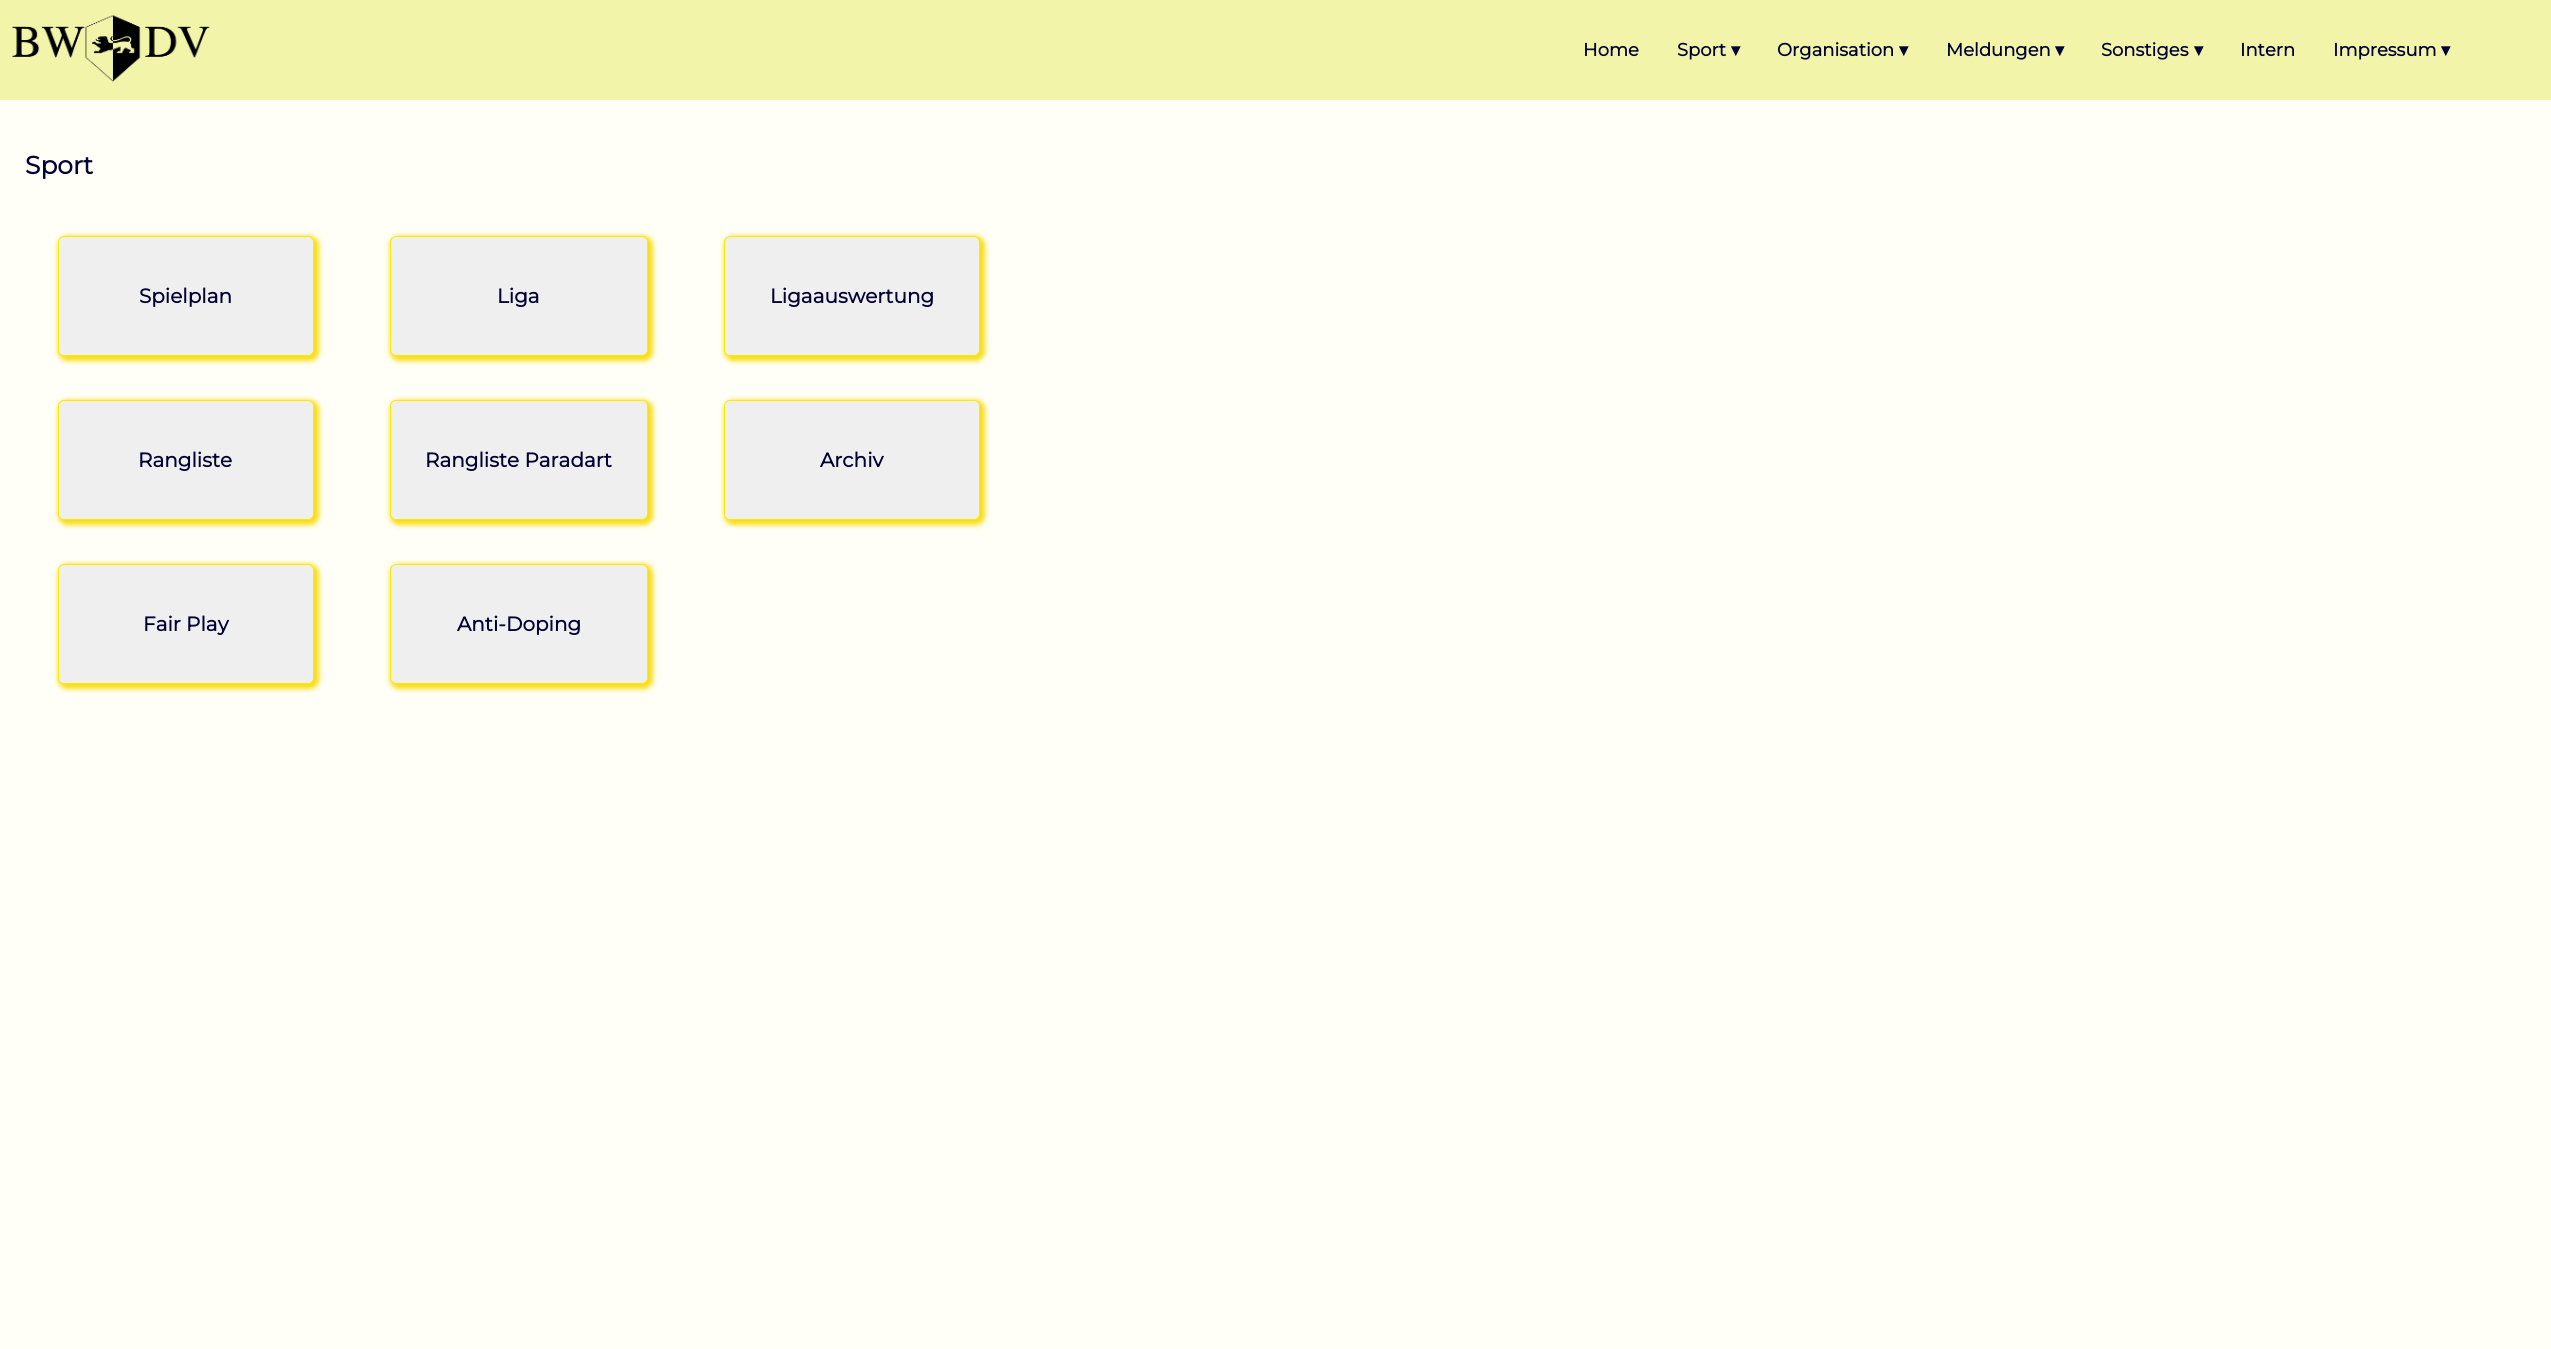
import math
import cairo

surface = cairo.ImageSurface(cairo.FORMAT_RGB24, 2551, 1349)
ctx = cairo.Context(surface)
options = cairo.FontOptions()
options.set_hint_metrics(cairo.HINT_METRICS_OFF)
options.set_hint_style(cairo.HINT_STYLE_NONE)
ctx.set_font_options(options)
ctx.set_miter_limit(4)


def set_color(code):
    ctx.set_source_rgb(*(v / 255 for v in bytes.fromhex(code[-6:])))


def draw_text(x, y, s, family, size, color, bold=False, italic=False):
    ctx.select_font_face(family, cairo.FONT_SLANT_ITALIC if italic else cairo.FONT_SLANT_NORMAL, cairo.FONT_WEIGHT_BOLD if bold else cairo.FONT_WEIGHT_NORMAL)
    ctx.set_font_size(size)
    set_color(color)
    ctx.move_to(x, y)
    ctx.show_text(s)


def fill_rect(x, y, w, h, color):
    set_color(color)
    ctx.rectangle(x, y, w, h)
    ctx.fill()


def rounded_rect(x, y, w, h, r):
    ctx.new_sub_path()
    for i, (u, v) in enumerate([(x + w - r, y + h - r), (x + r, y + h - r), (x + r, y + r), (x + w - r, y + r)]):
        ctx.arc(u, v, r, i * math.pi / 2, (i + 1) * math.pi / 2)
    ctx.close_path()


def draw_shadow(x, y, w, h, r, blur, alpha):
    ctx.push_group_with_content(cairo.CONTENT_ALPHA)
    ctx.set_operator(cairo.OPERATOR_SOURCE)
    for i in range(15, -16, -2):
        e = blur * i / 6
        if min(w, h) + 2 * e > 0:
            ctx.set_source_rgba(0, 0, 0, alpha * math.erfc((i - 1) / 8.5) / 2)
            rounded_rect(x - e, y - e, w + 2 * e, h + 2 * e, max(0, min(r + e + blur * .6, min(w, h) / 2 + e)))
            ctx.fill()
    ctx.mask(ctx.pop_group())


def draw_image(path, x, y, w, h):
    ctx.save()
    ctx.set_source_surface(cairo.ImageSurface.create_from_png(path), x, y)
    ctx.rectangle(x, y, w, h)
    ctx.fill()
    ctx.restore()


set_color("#fffff8")
ctx.paint()
fill_rect(0, 0, 2551, 100, "#f2f5a9")
draw_image("assets/img1.png", 12, 14, 198, 68)
draw_text(1583, 56, "Home", "Montserrat", 18, "#000033", bold=True)
draw_text(1677, 56, "Sport", "Montserrat", 18, "#000033", bold=True)
draw_text(1731, 56, "▾", "DejaVu Sans", 18, "#000033", bold=True)
draw_text(1777, 56, "Organisation", "Montserrat", 18, "#000033", bold=True)
draw_text(1899, 56, "▾", "DejaVu Sans", 18, "#000033", bold=True)
draw_text(1946, 56, "Meldungen", "Montserrat", 18, "#000033", bold=True)
draw_text(2055, 56, "▾", "DejaVu Sans", 18, "#000033", bold=True)
draw_text(2101, 56, "Sonstiges", "Montserrat", 18, "#000033", bold=True)
draw_text(2194, 56, "▾", "DejaVu Sans", 18, "#000033", bold=True)
draw_text(2240, 56, "Intern", "Montserrat", 18, "#000033", bold=True)
draw_text(2333, 56, "Impressum", "Montserrat", 18, "#000033", bold=True)
draw_text(2441, 56, "▾", "DejaVu Sans", 18, "#000033", bold=True)
draw_text(25, 174, "Sport", "Montserrat", 25, "#000033", bold=True)
set_color("#f8dc14")
draw_shadow(58, 236, 261, 125, 9, 2.5, 1)
set_color("#efefef")
rounded_rect(58.5, 236.5, 255, 119, 5.5)
ctx.fill_preserve()
set_color("#feea00")
ctx.set_line_width(1)
ctx.stroke()
draw_text(139, 303, "Spielplan", "Montserrat", 20, "#000033", bold=True)
set_color("#f8dc14")
draw_shadow(390, 236, 263, 125, 9, 2.5, 1)
set_color("#efefef")
rounded_rect(390.5, 236.5, 257, 119, 5.5)
ctx.fill_preserve()
set_color("#feea00")
ctx.stroke()
draw_text(497, 303, "Liga", "Montserrat", 20, "#000033", bold=True)
set_color("#f8dc14")
draw_shadow(724, 236, 261, 125, 9, 2.5, 1)
set_color("#efefef")
rounded_rect(724.5, 236.5, 255, 119, 5.5)
ctx.fill_preserve()
set_color("#feea00")
ctx.stroke()
draw_text(770, 303, "Ligaauswertung", "Montserrat", 20, "#000033", bold=True)
set_color("#f8dc14")
draw_shadow(58, 400, 261, 125, 9, 2.5, 1)
set_color("#efefef")
rounded_rect(58.5, 400.5, 255, 119, 5.5)
ctx.fill_preserve()
set_color("#feea00")
ctx.stroke()
draw_text(138, 467, "Rangliste", "Montserrat", 20, "#000033", bold=True)
set_color("#f8dc14")
draw_shadow(390, 400, 263, 125, 9, 2.5, 1)
set_color("#efefef")
rounded_rect(390.5, 400.5, 257, 119, 5.5)
ctx.fill_preserve()
set_color("#feea00")
ctx.stroke()
draw_text(425, 467, "Rangliste Paradart", "Montserrat", 20, "#000033", bold=True)
set_color("#f8dc14")
draw_shadow(724, 400, 261, 125, 9, 2.5, 1)
set_color("#efefef")
rounded_rect(724.5, 400.5, 255, 119, 5.5)
ctx.fill_preserve()
set_color("#feea00")
ctx.stroke()
draw_text(820, 467, "Archiv", "Montserrat", 20, "#000033", bold=True)
set_color("#f8dc14")
draw_shadow(58, 564, 261, 125, 9, 2.5, 1)
set_color("#efefef")
rounded_rect(58.5, 564.5, 255, 119, 5.5)
ctx.fill_preserve()
set_color("#feea00")
ctx.stroke()
draw_text(143, 631, "Fair Play", "Montserrat", 20, "#000033", bold=True)
set_color("#f8dc14")
draw_shadow(390, 564, 263, 125, 9, 2.5, 1)
set_color("#efefef")
rounded_rect(390.5, 564.5, 257, 119, 5.5)
ctx.fill_preserve()
set_color("#feea00")
ctx.stroke()
draw_text(457, 631, "Anti-Doping", "Montserrat", 20, "#000033", bold=True)
surface.write_to_png("output.png")
